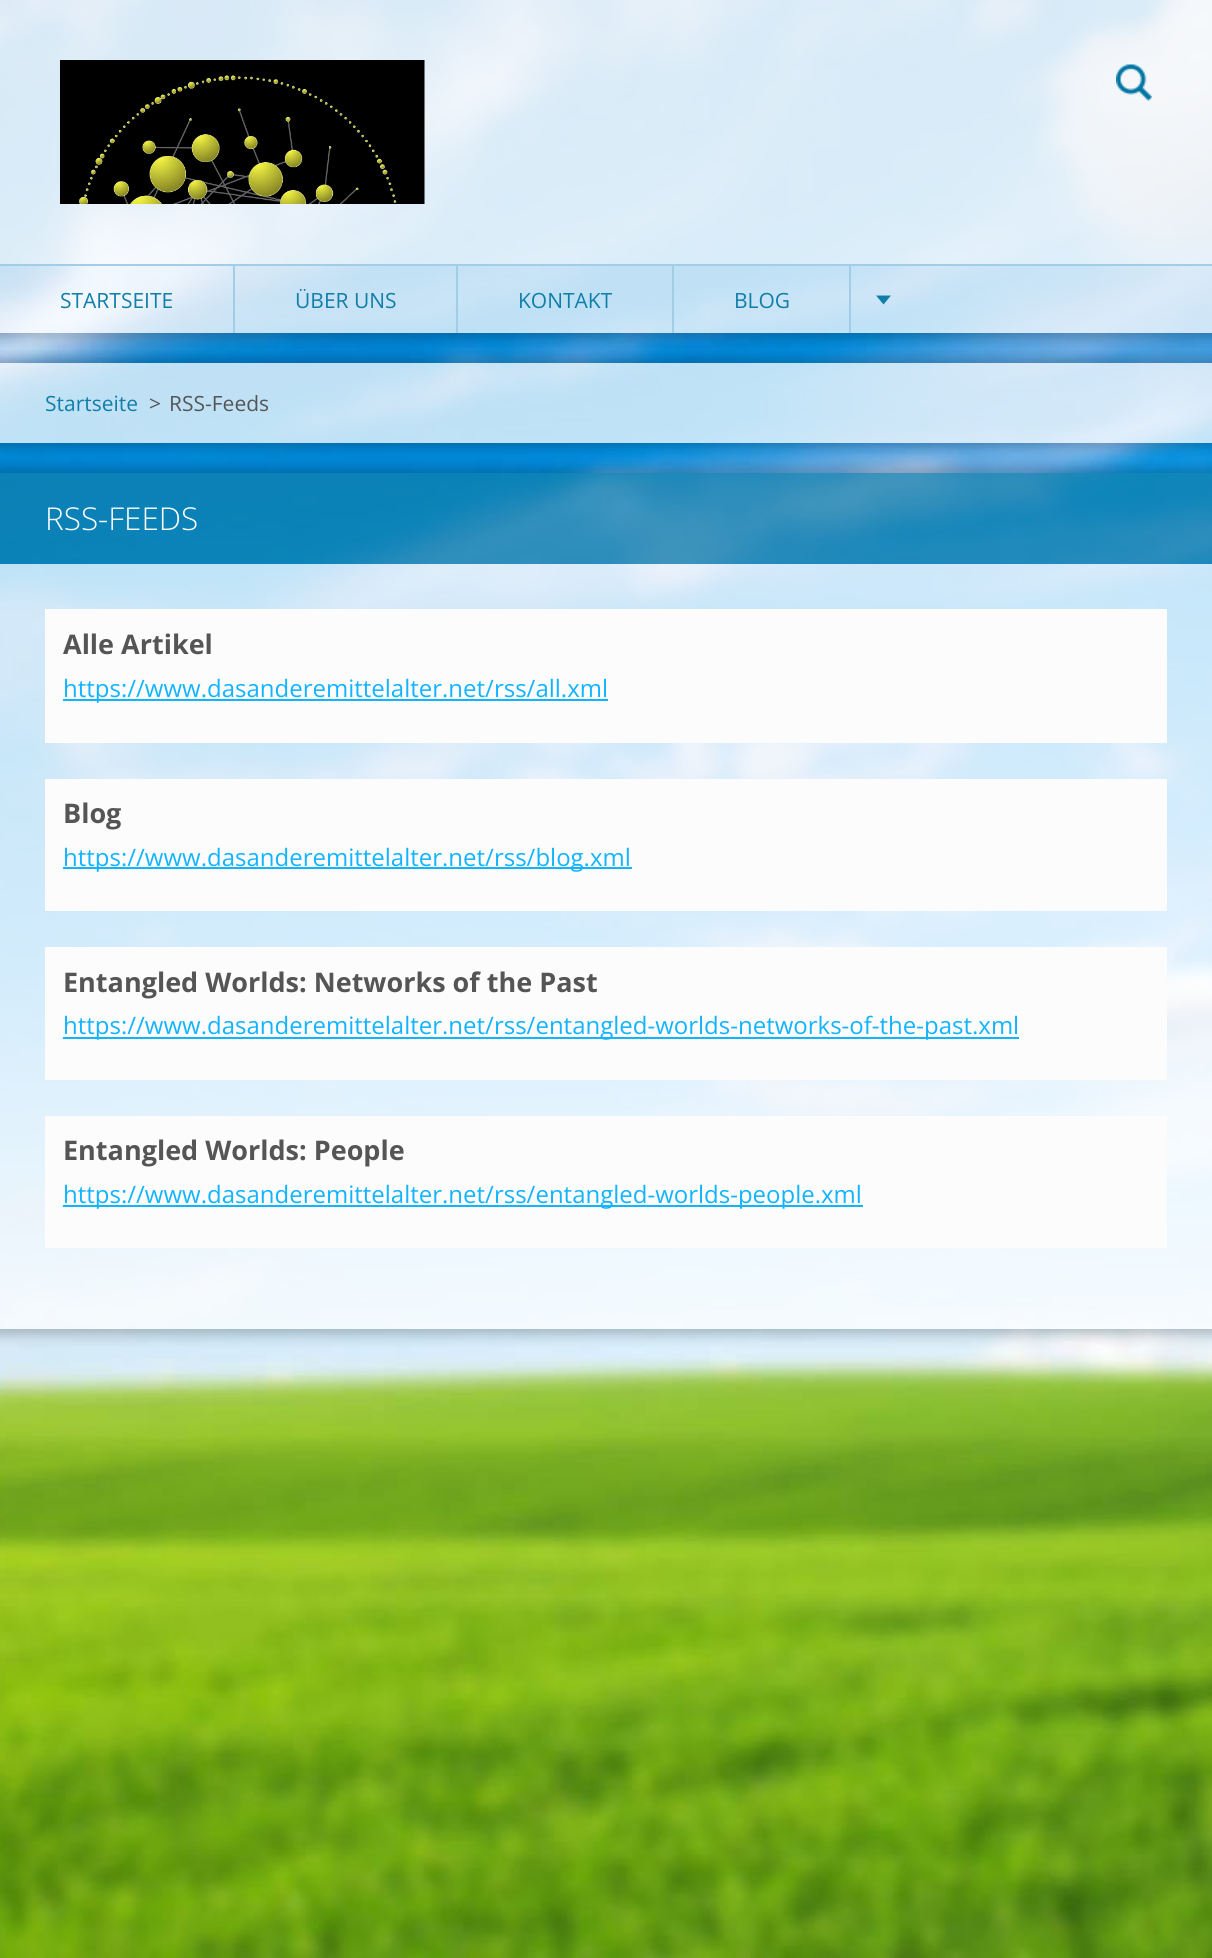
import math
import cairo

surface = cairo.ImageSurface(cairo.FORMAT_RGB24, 1212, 1958)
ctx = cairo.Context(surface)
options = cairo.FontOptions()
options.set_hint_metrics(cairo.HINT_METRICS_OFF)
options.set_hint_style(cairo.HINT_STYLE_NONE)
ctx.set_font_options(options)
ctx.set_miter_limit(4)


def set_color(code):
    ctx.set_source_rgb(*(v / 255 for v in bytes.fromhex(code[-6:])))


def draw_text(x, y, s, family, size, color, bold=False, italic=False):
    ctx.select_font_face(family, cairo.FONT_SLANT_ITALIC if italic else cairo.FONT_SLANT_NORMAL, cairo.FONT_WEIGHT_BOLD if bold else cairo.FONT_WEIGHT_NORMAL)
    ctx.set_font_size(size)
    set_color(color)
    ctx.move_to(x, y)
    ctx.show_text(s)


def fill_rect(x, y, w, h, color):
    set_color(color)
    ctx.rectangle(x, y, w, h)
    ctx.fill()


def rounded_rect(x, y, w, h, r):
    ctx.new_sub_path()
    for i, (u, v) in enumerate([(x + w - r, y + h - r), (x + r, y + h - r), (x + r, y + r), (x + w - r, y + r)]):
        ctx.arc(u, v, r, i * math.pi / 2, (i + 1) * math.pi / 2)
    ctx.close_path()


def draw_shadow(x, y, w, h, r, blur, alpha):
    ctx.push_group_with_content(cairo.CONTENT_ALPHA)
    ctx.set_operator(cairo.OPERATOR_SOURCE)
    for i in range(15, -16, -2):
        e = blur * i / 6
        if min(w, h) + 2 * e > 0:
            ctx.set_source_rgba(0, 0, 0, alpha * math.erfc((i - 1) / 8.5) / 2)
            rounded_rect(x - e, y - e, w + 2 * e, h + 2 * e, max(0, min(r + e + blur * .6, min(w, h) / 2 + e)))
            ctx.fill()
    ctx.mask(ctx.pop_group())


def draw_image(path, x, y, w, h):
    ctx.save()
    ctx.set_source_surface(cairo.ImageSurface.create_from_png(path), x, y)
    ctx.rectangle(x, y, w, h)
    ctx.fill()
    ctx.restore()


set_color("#ffffff")
ctx.paint()
draw_image("assets/img1.png", 0, 0, 1212, 1958)
ctx.save()
ctx.rectangle(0, 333, 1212, 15)
ctx.clip()
set_color("#000000")
draw_shadow(-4, -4, 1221, 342, 0, 7, 0.25)
ctx.restore()
ctx.set_source_rgba(1, 1, 1, 0.85)
ctx.rectangle(0, 0, 1212, 264)
ctx.fill()
draw_image("assets/img2.png", 60, 60, 365, 144)
draw_image("assets/img3.png", 1116, 64, 36, 37)
fill_rect(0, 264, 1212, 2, "#a2cde6")
ctx.set_source_rgba(1, 1, 1, 0.75)
ctx.rectangle(0, 266, 1212, 67)
ctx.fill()
fill_rect(233, 266, 2, 67, "#a2cde6")
draw_text(60, 308, "STARTSEITE", "Open Sans", 21, "#107ea8")
fill_rect(456, 266, 2, 67, "#a2cde6")
draw_text(295, 308, "ÜBER UNS", "Open Sans", 21, "#107ea8")
fill_rect(672, 266, 2, 67, "#a2cde6")
draw_text(518, 308, "KONTAKT", "Open Sans", 21, "#107ea8")
fill_rect(849, 266, 2, 67, "#a2cde6")
draw_text(734, 308, "BLOG", "Open Sans", 21, "#107ea8")
ctx.new_path()
ctx.move_to(876, 295.5)
ctx.line_to(891, 295.5)
ctx.line_to(883.5, 304.5)
ctx.close_path()
ctx.fill()
ctx.save()
ctx.set_fill_rule(cairo.FILL_RULE_EVEN_ODD)
ctx.new_path()
ctx.move_to(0, 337)
ctx.line_to(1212, 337)
ctx.line_to(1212, 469)
ctx.line_to(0, 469)
ctx.close_path()
ctx.move_to(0, 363)
ctx.line_to(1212, 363)
ctx.line_to(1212, 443)
ctx.line_to(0, 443)
ctx.close_path()
ctx.clip()
set_color("#000000")
draw_shadow(-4, 359, 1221, 88, 0, 7, 0.25)
ctx.restore()
ctx.set_source_rgba(1, 1, 1, 0.75)
ctx.rectangle(0, 363, 1212, 80)
ctx.fill()
draw_text(45, 411, "Startseite", "Open Sans", 21, "#107ea8")
draw_text(149, 411, ">", "Open Sans", 21, "#555555")
draw_text(169, 411, "RSS-Feeds", "Open Sans", 21, "#555555")
ctx.save()
ctx.set_fill_rule(cairo.FILL_RULE_EVEN_ODD)
ctx.new_path()
ctx.move_to(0, 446)
ctx.line_to(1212, 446)
ctx.line_to(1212, 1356)
ctx.line_to(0, 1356)
ctx.close_path()
ctx.move_to(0, 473)
ctx.line_to(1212, 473)
ctx.line_to(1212, 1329)
ctx.line_to(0, 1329)
ctx.close_path()
ctx.clip()
set_color("#000000")
draw_shadow(-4, 468, 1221, 866, 0, 7, 0.25)
ctx.restore()
ctx.set_source_rgba(0.063, 0.494, 0.659, 0.71)
ctx.rectangle(0, 473, 1212, 91)
ctx.fill()
draw_text(45, 530, "RSS-FEEDS", "Open Sans Light", 31.5, "#ffffff")
ctx.set_source_rgba(1, 1, 1, 0.75)
ctx.rectangle(0, 564, 1212, 720)
ctx.fill()
fill_rect(45, 609, 1122, 134, "#fcfcfc")
draw_text(63, 654, "Alle Artikel", "Open Sans", 27, "#555555", bold=True)
fill_rect(63, 699, 545, 2, "#13b4ff")
draw_text(63, 697, "https://www.dasanderemittelalter.net/rss/all.xml", "Open Sans", 24, "#13b4ff")
fill_rect(45, 779, 1122, 132, "#fcfcfc")
draw_text(63, 823, "Blog", "Open Sans", 27, "#555555", bold=True)
fill_rect(63, 867, 569, 2, "#13b4ff")
draw_text(63, 866, "https://www.dasanderemittelalter.net/rss/blog.xml", "Open Sans", 24, "#13b4ff")
fill_rect(45, 947, 1122, 133, "#fcfcfc")
draw_text(63, 992, "Entangled Worlds: Networks of the Past", "Open Sans", 27, "#555555", bold=True)
fill_rect(63, 1037, 956, 2, "#13b4ff")
draw_text(63, 1034, "https://www.dasanderemittelalter.net/rss/entangled-worlds-networks-of-the-past.xml", "Open Sans", 24, "#13b4ff")
fill_rect(45, 1116, 1122, 132, "#fcfcfc")
draw_text(63, 1160, "Entangled Worlds: People", "Open Sans", 27, "#555555", bold=True)
fill_rect(63, 1205, 800, 2, "#13b4ff")
draw_text(63, 1203, "https://www.dasanderemittelalter.net/rss/entangled-worlds-people.xml", "Open Sans", 24, "#13b4ff")
ctx.set_source_rgba(1, 1, 1, 0.75)
ctx.rectangle(0, 1284, 1212, 45)
ctx.fill()
surface.write_to_png("output.png")
